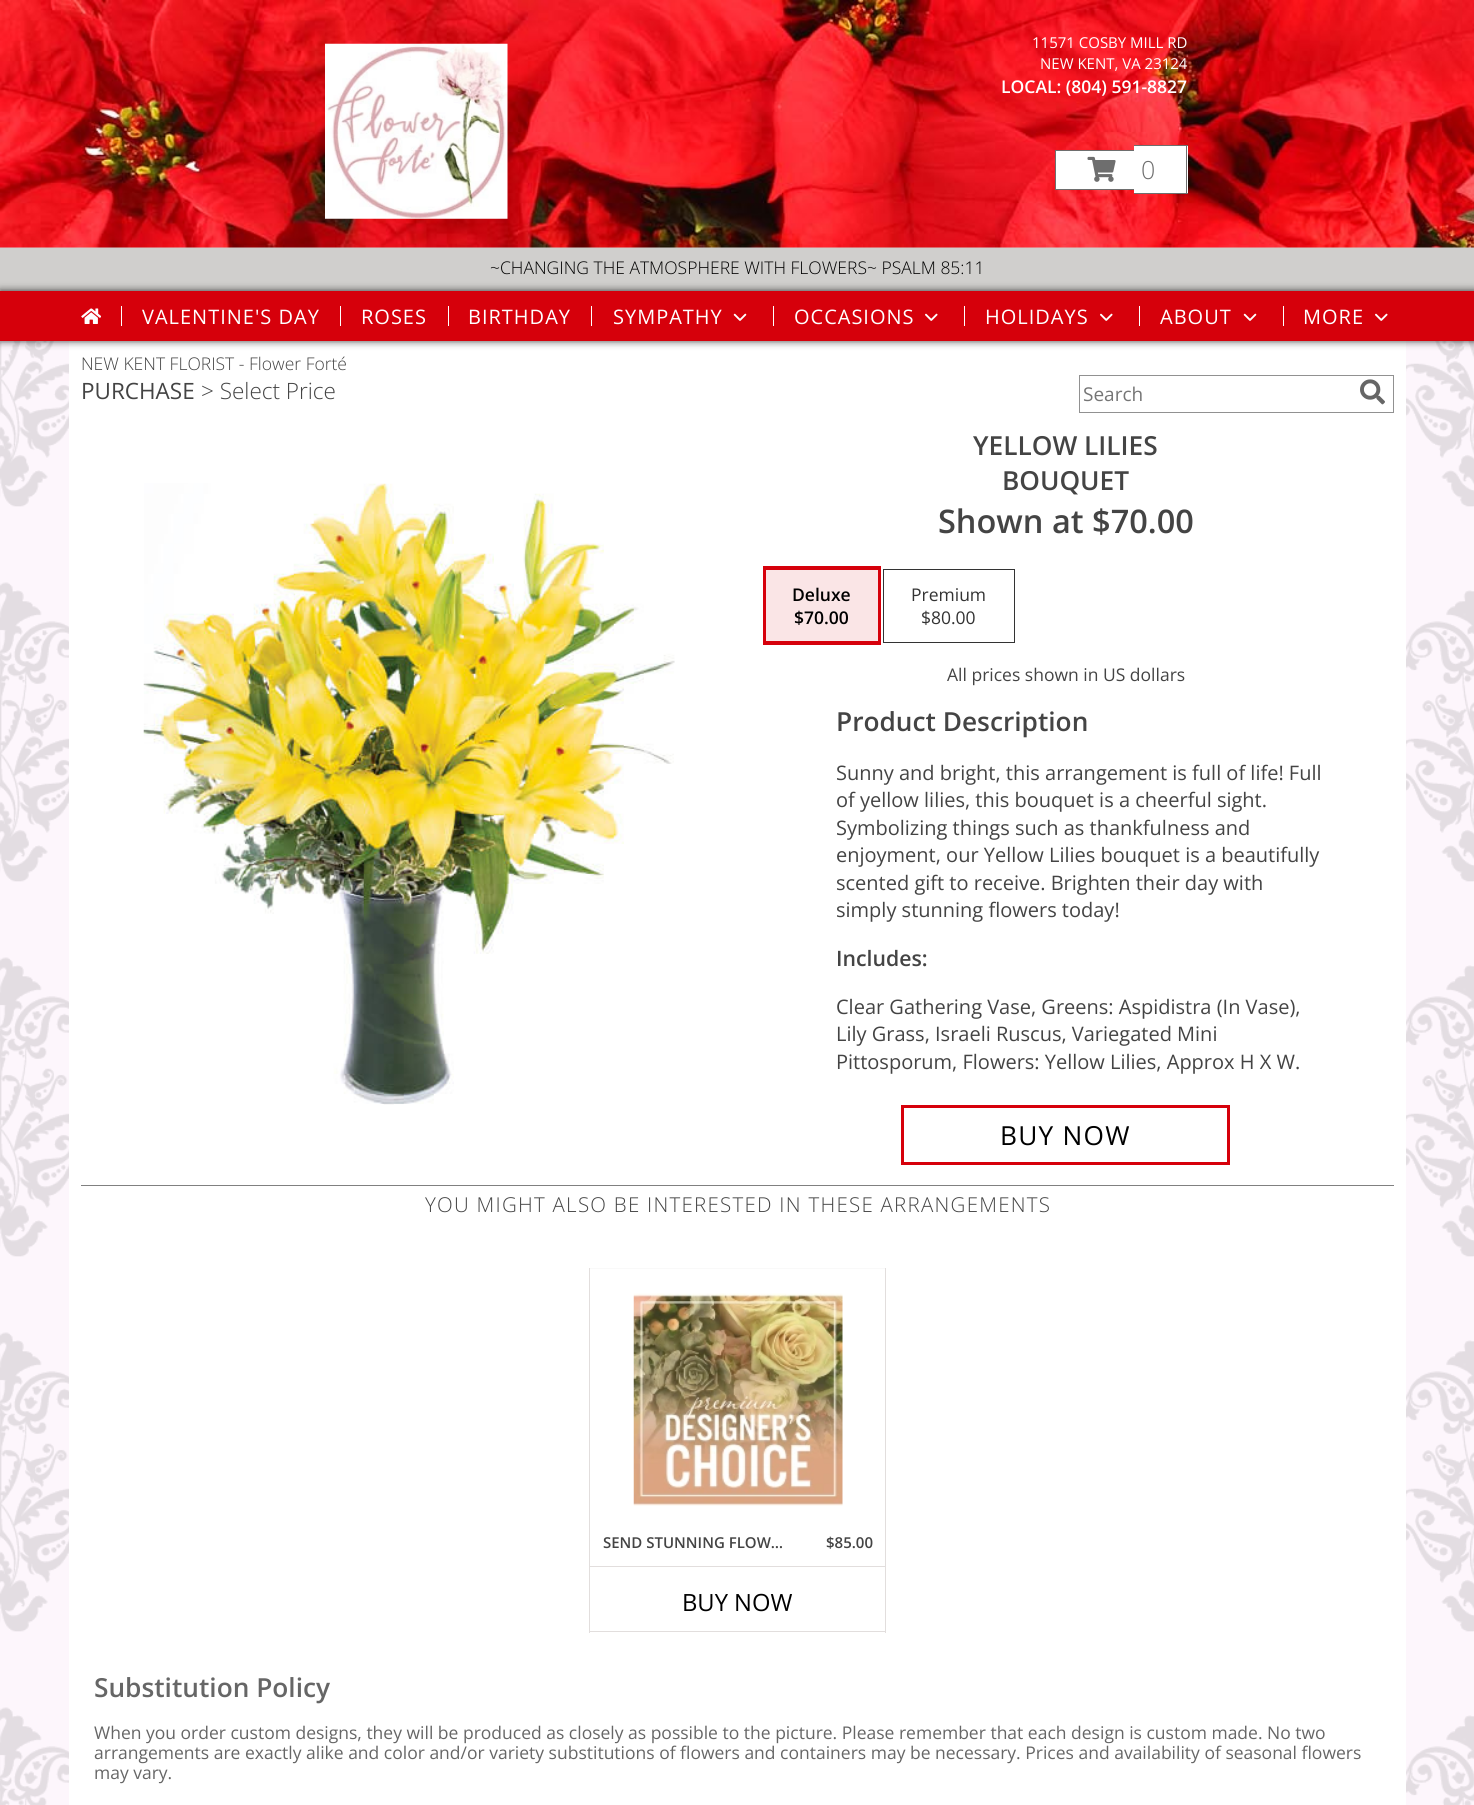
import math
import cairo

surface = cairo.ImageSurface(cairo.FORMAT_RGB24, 1474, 1805)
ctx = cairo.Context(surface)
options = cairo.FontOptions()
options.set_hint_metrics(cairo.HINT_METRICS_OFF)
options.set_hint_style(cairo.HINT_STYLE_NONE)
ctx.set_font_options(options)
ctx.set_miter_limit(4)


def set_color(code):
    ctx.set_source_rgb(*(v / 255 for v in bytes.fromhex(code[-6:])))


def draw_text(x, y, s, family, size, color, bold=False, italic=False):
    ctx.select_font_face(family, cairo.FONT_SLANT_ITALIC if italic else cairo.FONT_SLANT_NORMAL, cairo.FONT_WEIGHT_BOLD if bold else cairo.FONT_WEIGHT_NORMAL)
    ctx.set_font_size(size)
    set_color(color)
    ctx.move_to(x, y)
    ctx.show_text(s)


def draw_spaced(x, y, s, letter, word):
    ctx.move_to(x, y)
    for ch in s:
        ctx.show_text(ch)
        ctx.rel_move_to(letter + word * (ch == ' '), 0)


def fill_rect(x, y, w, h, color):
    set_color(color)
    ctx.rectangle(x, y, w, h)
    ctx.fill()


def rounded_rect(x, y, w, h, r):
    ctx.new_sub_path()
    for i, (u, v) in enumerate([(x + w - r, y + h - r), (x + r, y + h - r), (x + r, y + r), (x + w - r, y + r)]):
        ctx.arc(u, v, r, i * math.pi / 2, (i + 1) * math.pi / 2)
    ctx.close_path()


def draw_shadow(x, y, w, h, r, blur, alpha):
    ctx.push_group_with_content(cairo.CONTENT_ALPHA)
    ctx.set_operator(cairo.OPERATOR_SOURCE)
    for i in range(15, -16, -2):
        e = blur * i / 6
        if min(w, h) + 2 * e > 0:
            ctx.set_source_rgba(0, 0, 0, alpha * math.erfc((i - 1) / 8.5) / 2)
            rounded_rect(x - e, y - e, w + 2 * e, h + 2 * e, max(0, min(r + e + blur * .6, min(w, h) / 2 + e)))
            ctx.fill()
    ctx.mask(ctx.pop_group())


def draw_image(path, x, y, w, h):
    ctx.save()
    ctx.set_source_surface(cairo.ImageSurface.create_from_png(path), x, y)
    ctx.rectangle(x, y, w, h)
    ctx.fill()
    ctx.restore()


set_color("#fdf6fc")
ctx.paint()
draw_image("assets/img1.png", 0, 341, 1474, 1464)
fill_rect(69, 341, 1337, 1464, "#ffffff")
fill_rect(0, 247, 1474, 44, "#d0cfcd")
draw_image("assets/img2.png", 0, 0, 1474, 248)
draw_image("assets/img3.png", 325, 43, 183, 176)
draw_text(1032, 48, "11571 COSBY MILL RD", "Open Sans", 15, "#ffffff")
draw_text(1040, 69, "NEW KENT, VA 23124", "Open Sans", 15, "#ffffff")
draw_text(1001, 93, "LOCAL: (804) 591-8827", "Open Sans SemiBold", 17.5, "#ffffff")
fill_rect(1056, 151, 78, 38, "#ffffff")
fill_rect(1055, 150, 79, 1, "#6e6e6e")
fill_rect(1055, 189, 79, 1, "#6e6e6e")
fill_rect(1055, 150, 1, 40, "#6e6e6e")
fill_rect(1134, 145, 7, 49, "#ffffff")
fill_rect(1134, 145, 54, 1, "#6e6e6e")
fill_rect(1134, 193, 7, 1, "#6e6e6e")
fill_rect(1141, 146, 47, 47, "#ffffff")
fill_rect(1186, 145, 1, 49, "#6e6e6e")
fill_rect(1141, 193, 47, 1, "#6e6e6e")
draw_image("assets/img4.png", 1087, 156, 29, 26)
draw_text(1141, 179, "0", "Open Sans Light", 25, "#6e6e6e")
draw_text(490, 274, "~CHANGING THE ATMOSPHERE WITH FLOWERS~ PSALM 85:11", "Open Sans Light", 17.5, "#000000")
set_color("#000000")
draw_shadow(0, 291, 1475, 50, 0, 4, 0.75)
fill_rect(0, 291, 1474, 50, "#d6000b")
draw_image("assets/img5.png", 81, 308, 20, 16)
fill_rect(121, 306, 1, 20, "#ffffff")
ctx.select_font_face("Open Sans")
ctx.set_font_size(20)
draw_spaced(142, 324, "VALENTINE'S DAY", 1, 0)
fill_rect(340, 306, 1, 20, "#ffffff")
draw_spaced(361, 324, "ROSES", 1, 0)
fill_rect(448, 306, 1, 20, "#ffffff")
draw_spaced(468, 324, "BIRTHDAY", 1, 0)
fill_rect(591, 306, 1, 20, "#ffffff")
draw_spaced(613, 324, "SYMPATHY", 1, 0)
draw_image("assets/img6.png", 733, 313, 14, 8)
fill_rect(773, 306, 1, 20, "#ffffff")
draw_spaced(794, 324, "OCCASIONS", 1, 0)
draw_image("assets/img7.png", 925, 313, 13, 8)
fill_rect(964, 306, 1, 20, "#ffffff")
draw_spaced(985, 324, "HOLIDAYS", 1, 0)
draw_image("assets/img7.png", 1100, 313, 13, 8)
fill_rect(1139, 306, 1, 20, "#ffffff")
draw_spaced(1160, 324, "ABOUT", 1, 0)
draw_image("assets/img6.png", 1243, 313, 14, 8)
fill_rect(1283, 306, 1, 20, "#ffffff")
draw_spaced(1303, 324, "MORE", 1, 0)
draw_image("assets/img7.png", 1375, 313, 13, 8)
draw_text(81, 370, "NEW KENT FLORIST - Flower Forté", "Open Sans Light", 17.5, "#444444")
draw_text(81, 399, "PURCHASE", "Open Sans", 22.5, "#444444")
draw_text(201, 399, "> Select Price", "Open Sans Light", 22.5, "#444444")
ctx.rectangle(1079.5, 375.5, 314, 37)
set_color("#919191")
ctx.set_line_width(1)
ctx.stroke()
draw_text(1083, 401, "Search", "Open Sans", 19, "#757575")
draw_image("assets/img8.png", 1360, 379, 25, 26)
draw_image("assets/img9.png", 143, 483, 532, 622)
draw_text(973, 455, "YELLOW LILIES", "Open Sans SemiBold", 26.25, "#444444")
draw_text(1002, 490, "BOUQUET", "Open Sans SemiBold", 26.25, "#444444")
draw_text(938, 533, "Shown at $70.00", "Open Sans SemiBold", 32.5, "#444444")
ctx.rectangle(765, 568, 114, 75)
set_color("#d6000b")
ctx.set_line_width(4)
ctx.stroke()
fill_rect(766, 570, 112, 71, "#fae5e6")
draw_text(792, 601, "Deluxe", "Open Sans SemiBold", 17.5, "#000000")
draw_text(794, 624, "$70.00", "Open Sans SemiBold", 17.5, "#000000")
ctx.rectangle(883.5, 569.5, 131, 73)
set_color("#333333")
ctx.set_line_width(1)
ctx.stroke()
draw_text(911, 601, "Premium", "Open Sans", 17.5, "#333333")
draw_text(921, 624, "$80.00", "Open Sans", 17.5, "#333333")
draw_text(947, 681, "All prices shown in US dollars", "Open Sans", 17.5, "#444444")
draw_text(836, 731, "Product Description", "Open Sans SemiBold", 26.25, "#444444")
draw_text(836, 780, "Sunny and bright, this arrangement is full of life! Full", "Open Sans", 20, "#444444")
draw_text(836, 807, "of yellow lilies, this bouquet is a cheerful sight.", "Open Sans", 20, "#444444")
draw_text(836, 835, "Symbolizing things such as thankfulness and", "Open Sans", 20, "#444444")
draw_text(836, 862, "enjoyment, our Yellow Lilies bouquet is a beautifully", "Open Sans", 20, "#444444")
draw_text(836, 890, "scented gift to receive. Brighten their day with", "Open Sans", 20, "#444444")
draw_text(836, 917, "simply stunning flowers today!", "Open Sans", 20, "#444444")
draw_text(836, 966, "Includes:", "Open Sans SemiBold", 21.25, "#444444")
draw_text(836, 1014, "Clear Gathering Vase, Greens: Aspidistra (In Vase),", "Open Sans", 20, "#444444")
draw_text(836, 1041, "Lily Grass, Israeli Ruscus, Variegated Mini", "Open Sans", 20, "#444444")
draw_text(836, 1069, "Pittosporum, Flowers: Yellow Lilies, Approx H X W.", "Open Sans", 20, "#444444")
ctx.rectangle(902.5, 1106.5, 326, 57)
set_color("#d6000b")
ctx.set_line_width(3)
ctx.stroke()
ctx.set_font_size(26.25)
set_color("#000000")
draw_spaced(1000, 1145, "BUY NOW", 1.25, 0)
fill_rect(81, 1185, 1313, 1, "#808080")
ctx.select_font_face("Open Sans Light")
ctx.set_font_size(20.5)
set_color("#444444")
draw_spaced(425, 1212, "YOU MIGHT ALSO BE INTERESTED IN THESE ARRANGEMENTS", 1.25, 0)
fill_rect(589, 1268, 297, 1, "#f9f9f9")
fill_rect(885, 1268, 1, 365, "#e2dedd")
fill_rect(589, 1631, 297, 1, "#e2dedd")
fill_rect(589, 1268, 1, 365, "#e2dedd")
draw_image("assets/img10.png", 633, 1293, 210, 213)
draw_text(603, 1548, "SEND STUNNING FLOW…", "Open Sans SemiBold", 15, "#444444")
draw_text(826, 1548, "$85.00", "Open Sans SemiBold", 15, "#444444")
fill_rect(590, 1566, 295, 1, "#e2dedd")
draw_text(682, 1611, "BUY NOW", "Open Sans", 23.75, "#000000")
draw_text(94, 1697, "Substitution Policy", "Open Sans SemiBold", 26.25, "#666666")
draw_text(94, 1739, "When you order custom designs, they will be produced as closely as possible to the picture. Please remember that each design is custom made. No two", "Open Sans", 17.5, "#666666")
draw_text(94, 1759, "arrangements are exactly alike and color and/or variety substitutions of flowers and containers may be necessary. Prices and availability of seasonal flowers", "Open Sans", 17.5, "#666666")
draw_text(94, 1779, "may vary.", "Open Sans", 17.5, "#666666")
surface.write_to_png("output.png")
